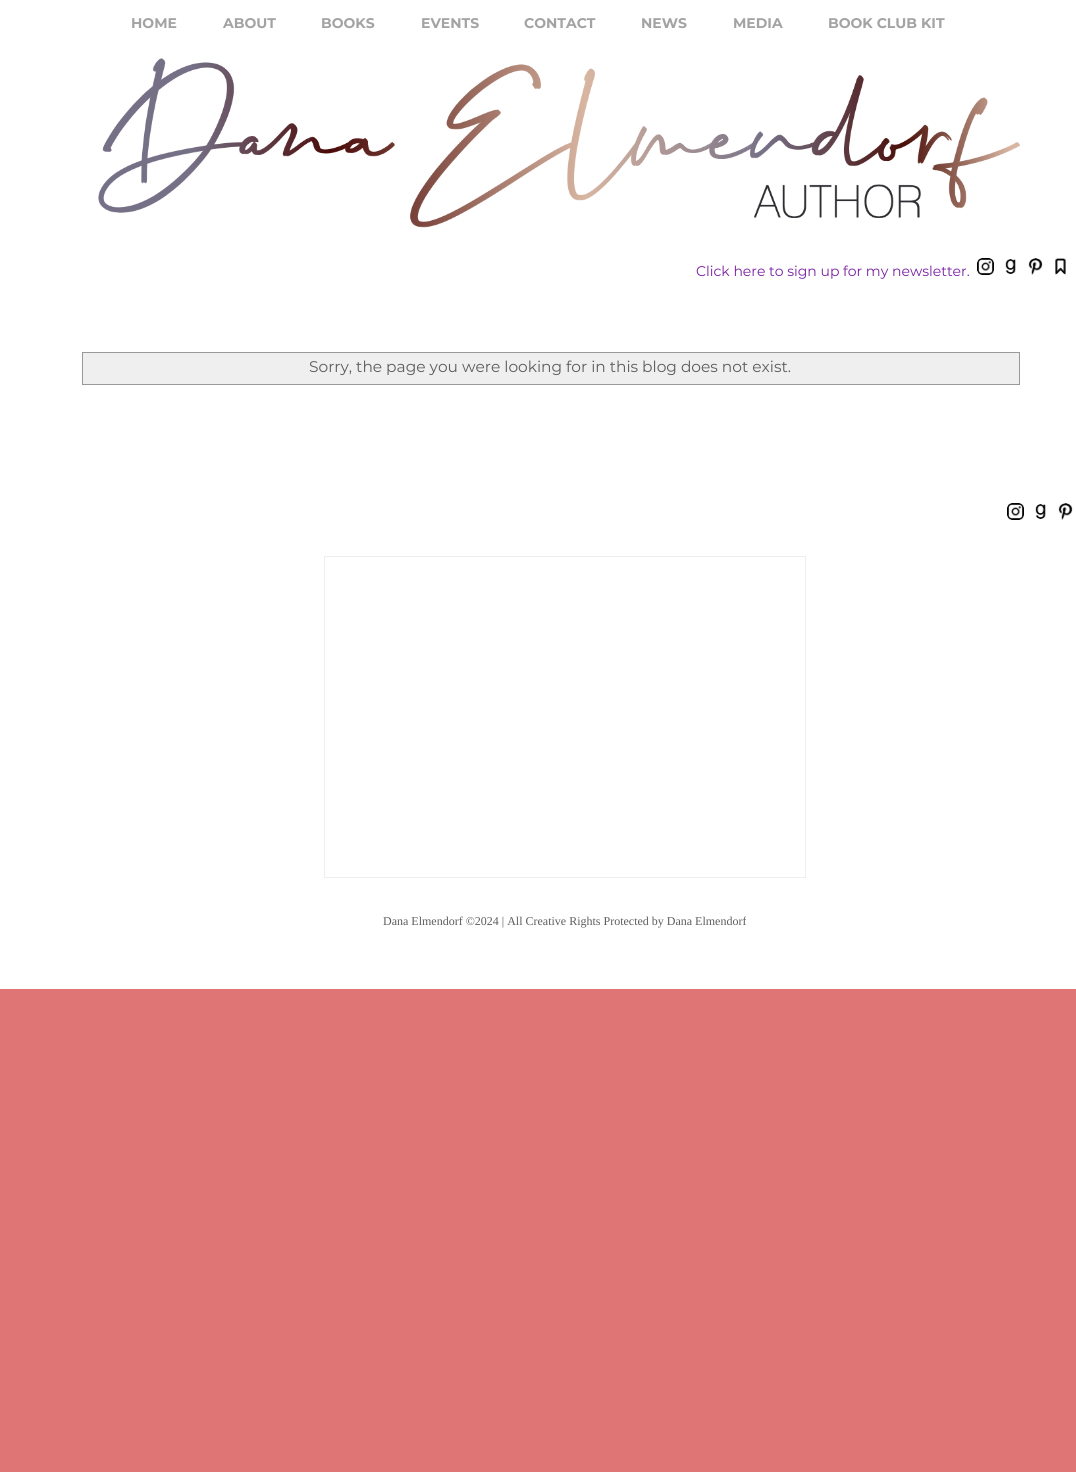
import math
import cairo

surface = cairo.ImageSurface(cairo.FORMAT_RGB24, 1076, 1472)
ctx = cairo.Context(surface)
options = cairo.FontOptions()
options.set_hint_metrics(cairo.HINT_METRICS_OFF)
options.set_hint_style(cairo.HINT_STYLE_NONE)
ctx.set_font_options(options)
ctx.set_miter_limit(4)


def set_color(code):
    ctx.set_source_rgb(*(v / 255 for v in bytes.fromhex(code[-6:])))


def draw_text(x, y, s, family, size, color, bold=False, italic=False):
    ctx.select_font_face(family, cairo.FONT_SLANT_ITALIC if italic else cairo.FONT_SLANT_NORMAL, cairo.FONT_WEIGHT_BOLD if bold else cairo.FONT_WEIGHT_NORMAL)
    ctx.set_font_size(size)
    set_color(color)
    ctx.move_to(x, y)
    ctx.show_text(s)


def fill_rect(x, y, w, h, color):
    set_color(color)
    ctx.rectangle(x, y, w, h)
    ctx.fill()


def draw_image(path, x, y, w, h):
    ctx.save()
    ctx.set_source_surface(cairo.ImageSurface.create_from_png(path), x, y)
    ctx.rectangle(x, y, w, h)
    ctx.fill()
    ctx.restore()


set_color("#e07575")
ctx.paint()
fill_rect(0, 0, 1076, 989, "#ffffff")
draw_text(131, 28, "HOME", "Montserrat", 14, "#a3a3a3", bold=True)
draw_text(223, 28, "ABOUT", "Montserrat", 14, "#a3a3a3", bold=True)
draw_text(321, 28, "BOOKS", "Montserrat", 14, "#a3a3a3", bold=True)
draw_text(421, 28, "EVENTS", "Montserrat", 14, "#a3a3a3", bold=True)
draw_text(524, 28, "CONTACT", "Montserrat", 14, "#a3a3a3", bold=True)
draw_text(641, 28, "NEWS", "Montserrat", 14, "#a3a3a3", bold=True)
draw_text(733, 28, "MEDIA", "Montserrat", 14, "#a3a3a3", bold=True)
draw_text(828, 28, "BOOK CLUB KIT", "Montserrat", 14, "#a3a3a3", bold=True)
draw_image("assets/img1.png", 98, 58, 922, 170)
draw_text(696, 276, "Click here to sign up for my newsletter.", "Montserrat Thin", 14, "#7b1fa2")
draw_image("assets/img2.png", 977, 258, 17, 17)
draw_image("assets/img3.png", 1005, 259, 11, 15)
draw_image("assets/img4.png", 1028, 258, 15, 17)
draw_image("assets/img5.png", 1055, 258, 11, 17)
ctx.rectangle(82.5, 352.5, 937, 32)
set_color("#999999")
ctx.set_line_width(1)
ctx.stroke()
fill_rect(83, 353, 936, 31, "#efefef")
draw_text(309, 372, "Sorry, the page you were looking for in this blog does not exist.", "Montserrat Thin", 15.4, "#5d5d5d")
draw_image("assets/img2.png", 1007, 503, 17, 17)
draw_image("assets/img3.png", 1035, 504, 11, 15)
draw_image("assets/img4.png", 1058, 503, 15, 17)
ctx.rectangle(324.5, 556.5, 481, 321)
set_color("#eeeeee")
ctx.stroke()
draw_text(383, 925, "Dana Elmendorf ©2024 | All Creative Rights Protected by Dana Elmendorf", "Liberation Serif", 12, "#5d5d5d")
surface.write_to_png("output.png")
